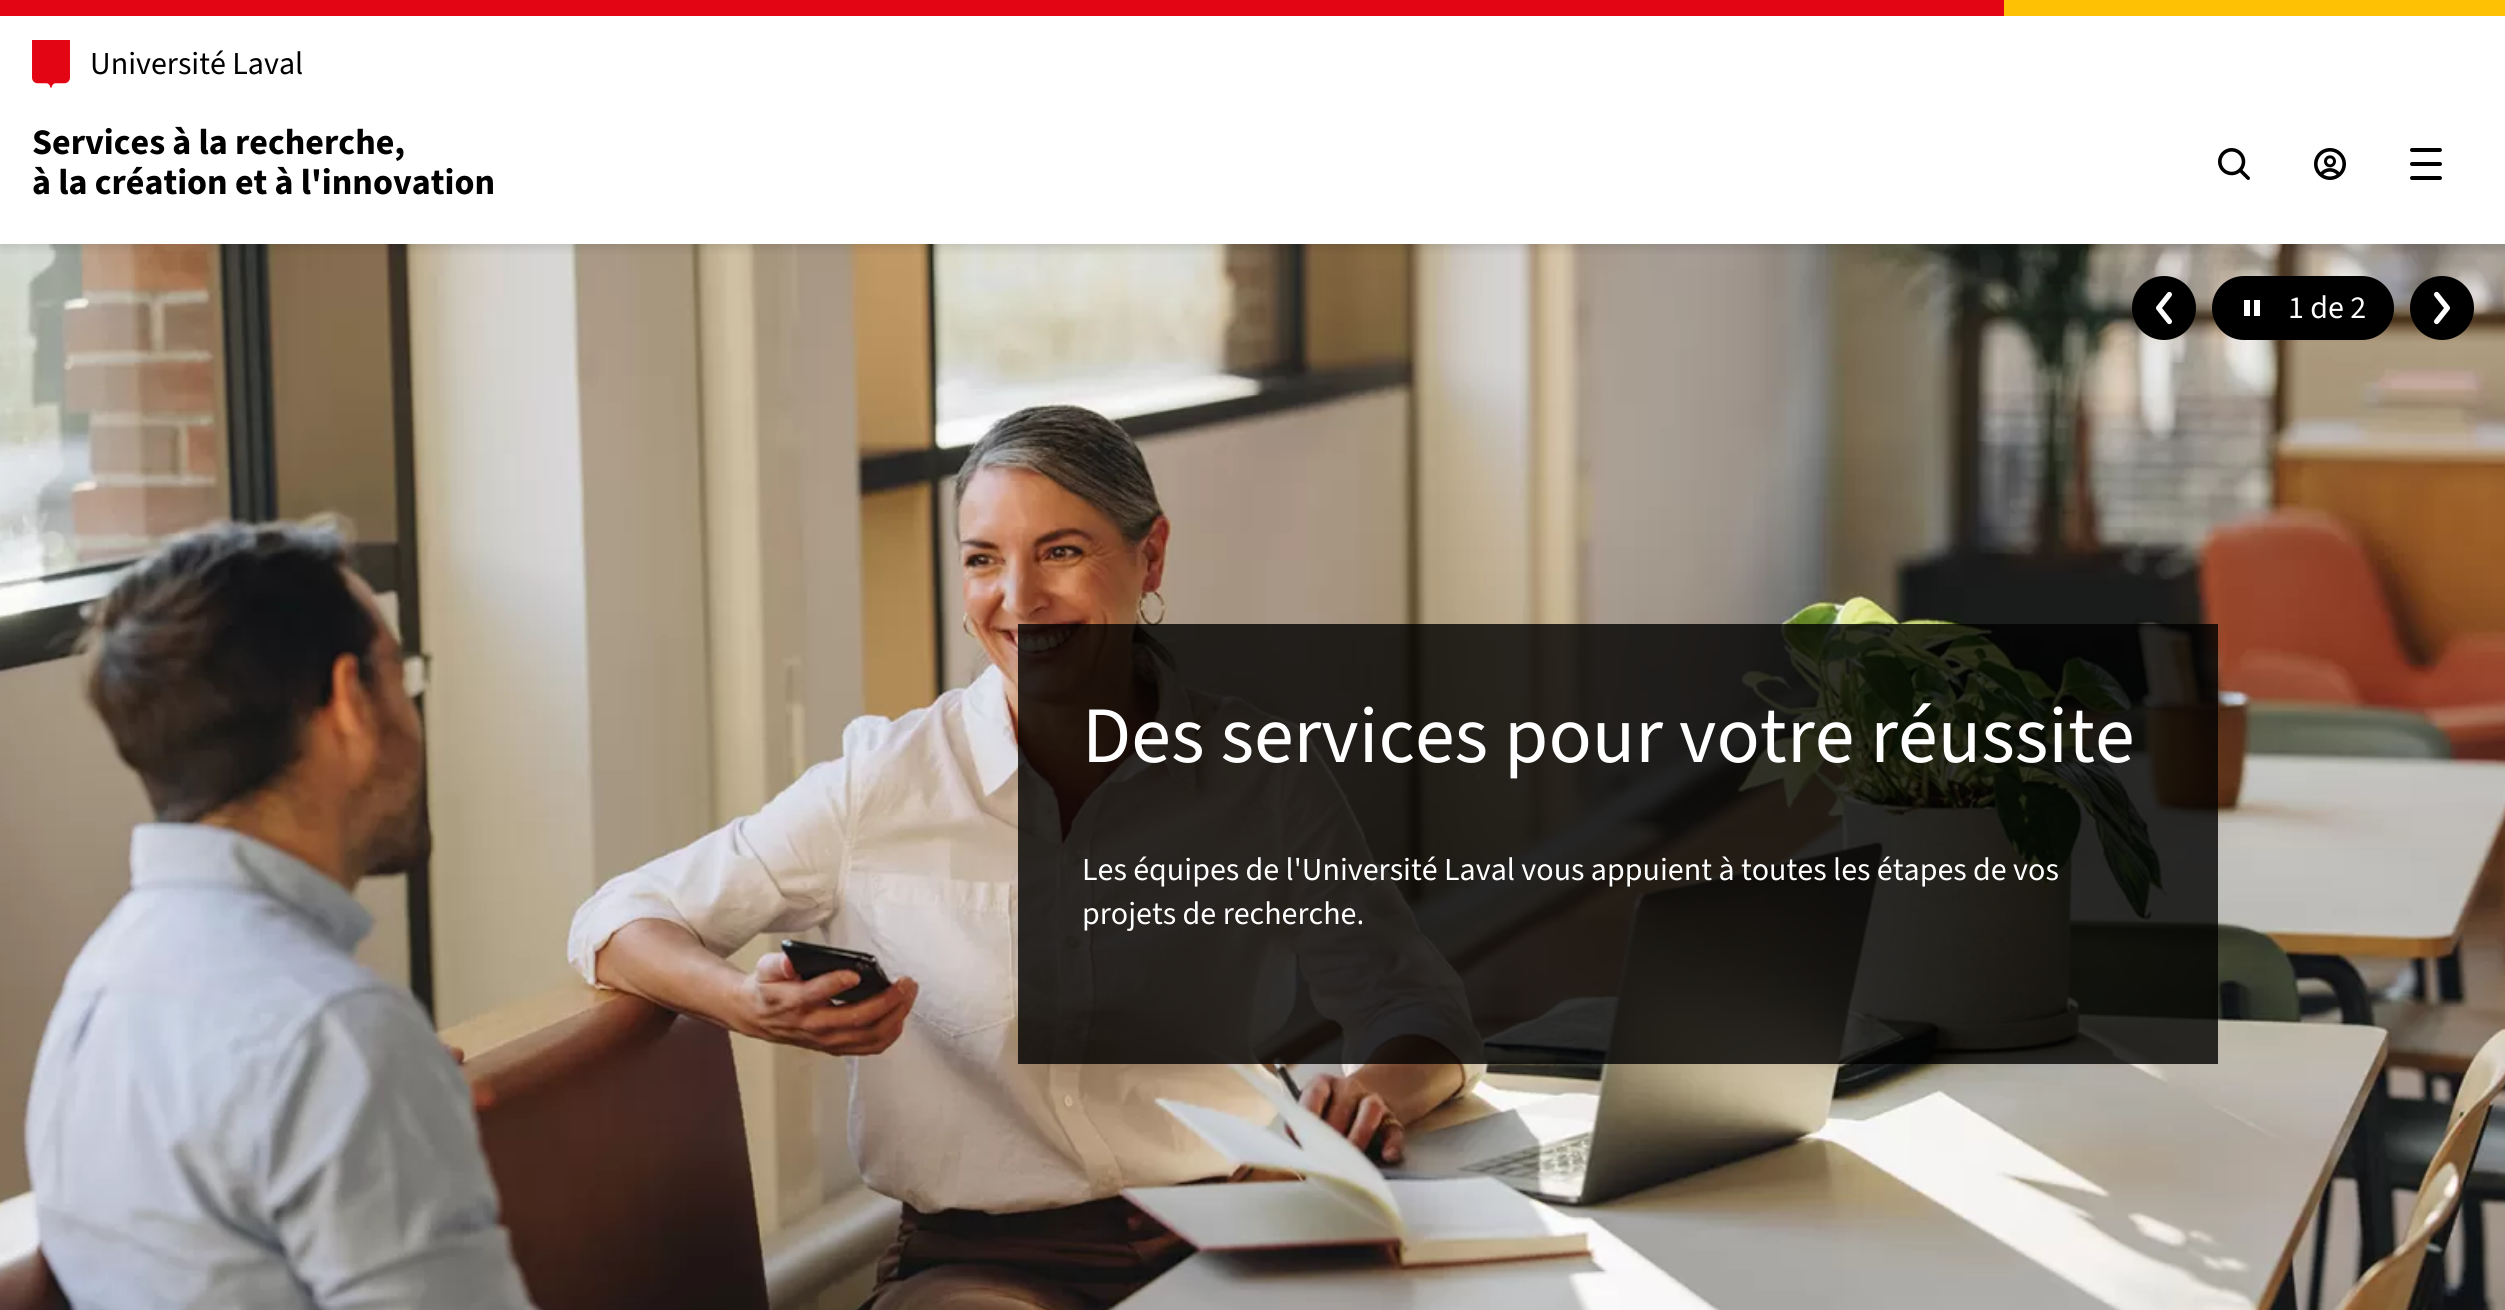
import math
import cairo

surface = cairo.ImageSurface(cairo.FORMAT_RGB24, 2505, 1310)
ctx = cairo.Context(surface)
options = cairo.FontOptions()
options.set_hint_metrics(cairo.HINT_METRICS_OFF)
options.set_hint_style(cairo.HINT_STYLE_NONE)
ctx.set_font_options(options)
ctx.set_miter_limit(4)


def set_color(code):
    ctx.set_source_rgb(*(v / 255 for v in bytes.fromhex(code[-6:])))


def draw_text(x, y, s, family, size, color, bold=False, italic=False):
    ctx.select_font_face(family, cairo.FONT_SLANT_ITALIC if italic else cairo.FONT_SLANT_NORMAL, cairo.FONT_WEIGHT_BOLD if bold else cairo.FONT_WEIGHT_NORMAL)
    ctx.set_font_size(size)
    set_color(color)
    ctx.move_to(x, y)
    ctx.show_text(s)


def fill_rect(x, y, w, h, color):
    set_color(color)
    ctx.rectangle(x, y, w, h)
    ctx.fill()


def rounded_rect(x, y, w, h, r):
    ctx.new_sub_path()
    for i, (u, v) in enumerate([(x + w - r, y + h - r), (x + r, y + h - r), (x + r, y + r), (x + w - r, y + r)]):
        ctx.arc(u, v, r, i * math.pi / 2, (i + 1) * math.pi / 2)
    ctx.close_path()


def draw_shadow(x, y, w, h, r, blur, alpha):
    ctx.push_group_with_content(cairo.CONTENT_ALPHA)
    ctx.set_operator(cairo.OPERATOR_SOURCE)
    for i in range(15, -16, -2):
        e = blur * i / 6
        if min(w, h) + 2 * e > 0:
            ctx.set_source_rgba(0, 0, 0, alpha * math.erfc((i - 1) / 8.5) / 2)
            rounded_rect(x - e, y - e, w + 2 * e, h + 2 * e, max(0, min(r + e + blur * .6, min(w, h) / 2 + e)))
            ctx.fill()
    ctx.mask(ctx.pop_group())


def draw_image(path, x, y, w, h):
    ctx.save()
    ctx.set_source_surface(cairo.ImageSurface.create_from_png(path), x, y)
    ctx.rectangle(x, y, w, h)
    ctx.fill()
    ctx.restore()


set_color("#ffffff")
ctx.paint()
draw_image("assets/img7.png", 0, 244, 2505, 1066)
ctx.save()
ctx.rectangle(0, 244, 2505, 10)
ctx.clip()
set_color("#000000")
draw_shadow(0, 2, 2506, 244, 0, 7, 0.15)
ctx.restore()
fill_rect(0, 0, 2004, 16, "#e30513")
fill_rect(2004, 0, 501, 16, "#ffc103")
draw_image("assets/img1.png", 32, 40, 38, 48)
draw_text(90, 74, "Université Laval", "Source Sans 3", 32, "#000000")
draw_text(32, 154, "Services à la recherche,", "Source Sans 3", 36, "#000000", bold=True)
draw_text(32, 194, "à la création et à l'innovation", "Source Sans 3", 36, "#000000", bold=True)
draw_image("assets/img2.png", 2218, 148, 32, 32)
draw_image("assets/img3.png", 2314, 148, 32, 32)
draw_image("assets/img4.png", 2410, 148, 32, 32)
ctx.arc(2164, 308, 32, 0, 2 * math.pi)
ctx.fill()
draw_image("assets/img5.png", 2156, 291, 16, 34)
rounded_rect(2212, 276, 182, 64, 32)
ctx.fill()
fill_rect(2244, 300, 6, 16, "#ffffff")
fill_rect(2254, 300, 6, 16, "#ffffff")
draw_text(2288, 318, "1 de 2", "Source Sans 3", 32, "#ffffff")
set_color("#000000")
ctx.new_path()
ctx.arc(2442, 308, 32, 0, 2 * math.pi)
ctx.fill()
draw_image("assets/img6.png", 2434, 291, 16, 34)
ctx.set_source_rgba(0, 0, 0, 0.8)
ctx.rectangle(1018, 624, 1200, 440)
ctx.fill()
draw_text(1082, 762, "Des services pour votre réussite", "Source Sans 3", 80, "#ffffff")
draw_text(1082, 880, "Les équipes de l'Université Laval vous appuient à toutes les étapes de vos", "Source Sans 3", 32, "#ffffff")
draw_text(1082, 924, "projets de recherche.", "Source Sans 3", 32, "#ffffff")
surface.write_to_png("output.png")
